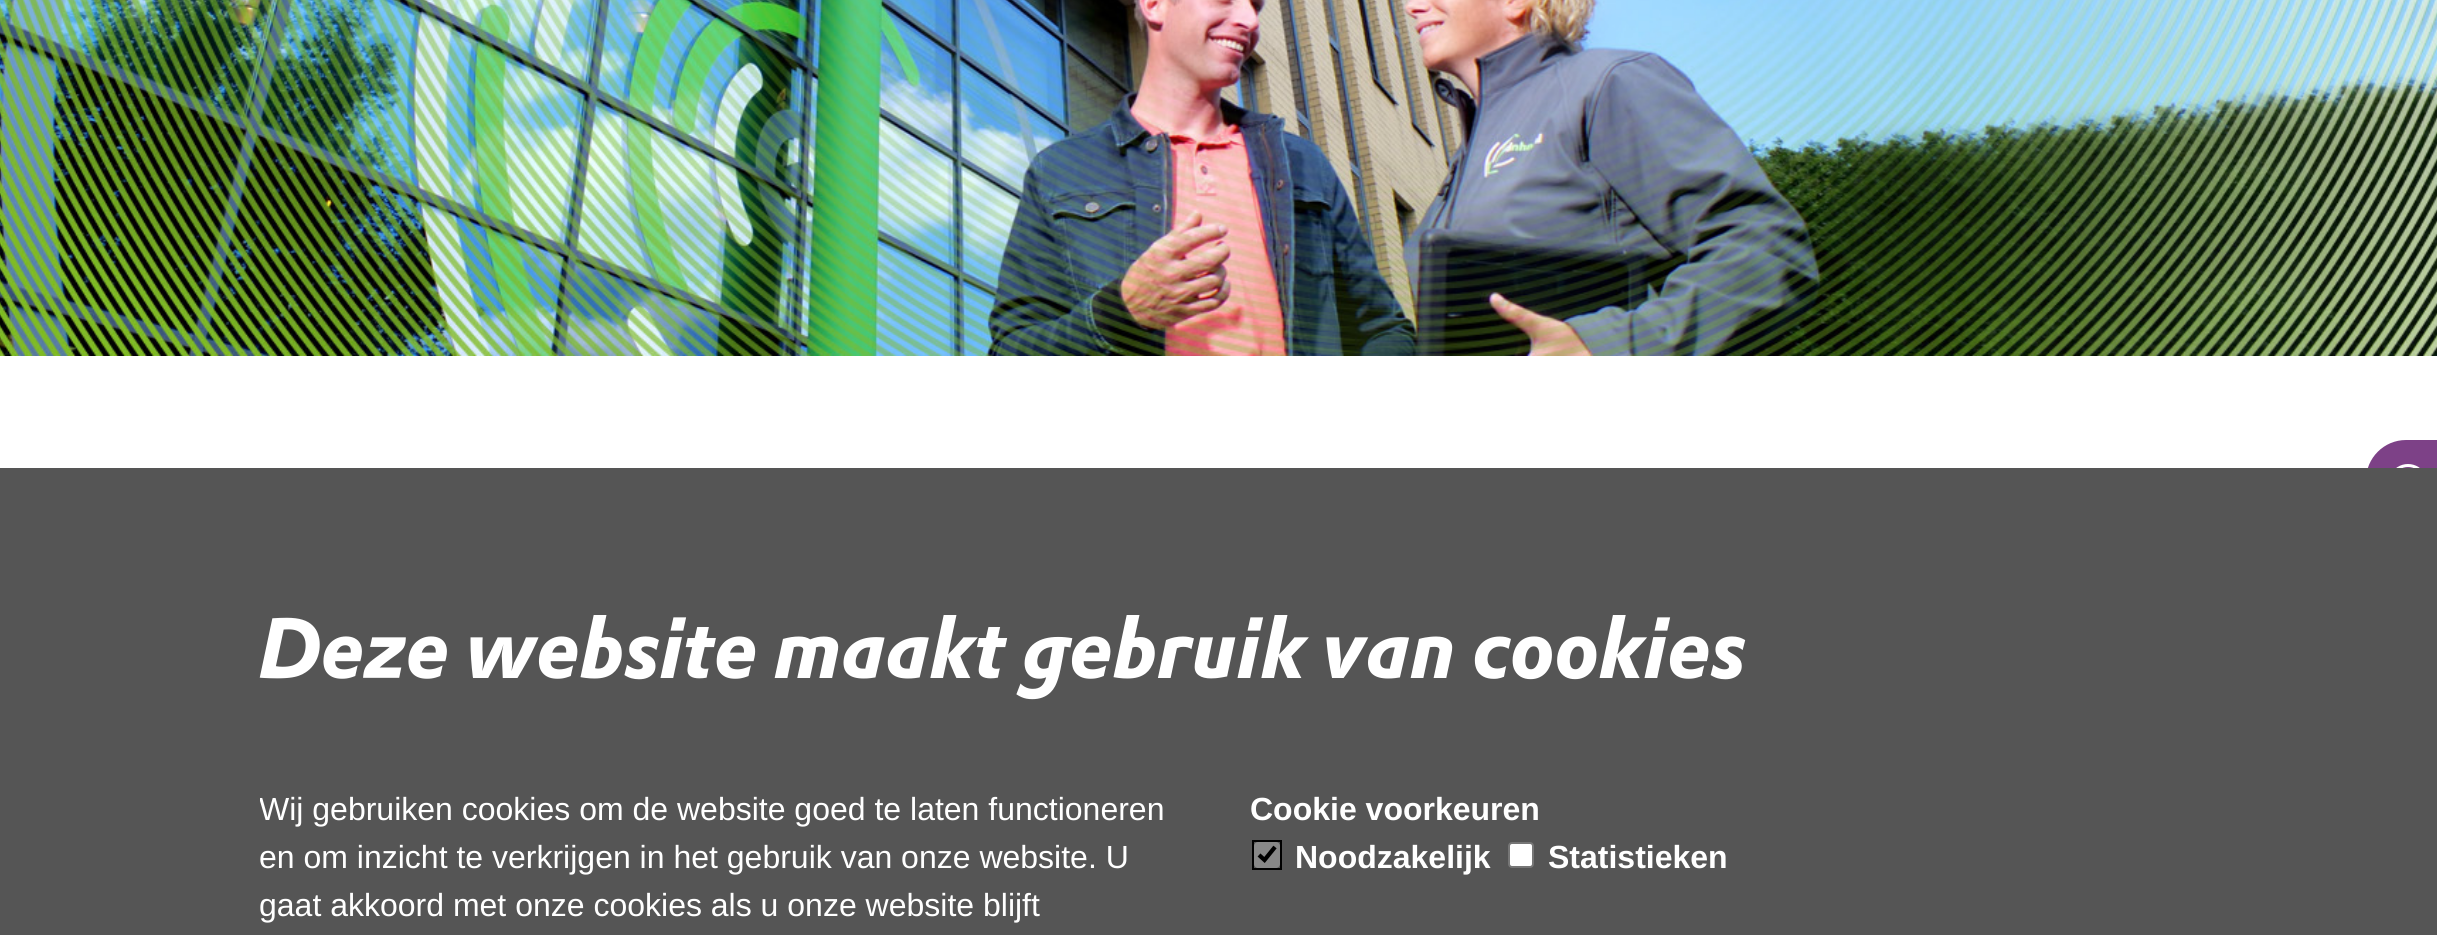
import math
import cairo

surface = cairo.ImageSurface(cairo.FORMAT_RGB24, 2437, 935)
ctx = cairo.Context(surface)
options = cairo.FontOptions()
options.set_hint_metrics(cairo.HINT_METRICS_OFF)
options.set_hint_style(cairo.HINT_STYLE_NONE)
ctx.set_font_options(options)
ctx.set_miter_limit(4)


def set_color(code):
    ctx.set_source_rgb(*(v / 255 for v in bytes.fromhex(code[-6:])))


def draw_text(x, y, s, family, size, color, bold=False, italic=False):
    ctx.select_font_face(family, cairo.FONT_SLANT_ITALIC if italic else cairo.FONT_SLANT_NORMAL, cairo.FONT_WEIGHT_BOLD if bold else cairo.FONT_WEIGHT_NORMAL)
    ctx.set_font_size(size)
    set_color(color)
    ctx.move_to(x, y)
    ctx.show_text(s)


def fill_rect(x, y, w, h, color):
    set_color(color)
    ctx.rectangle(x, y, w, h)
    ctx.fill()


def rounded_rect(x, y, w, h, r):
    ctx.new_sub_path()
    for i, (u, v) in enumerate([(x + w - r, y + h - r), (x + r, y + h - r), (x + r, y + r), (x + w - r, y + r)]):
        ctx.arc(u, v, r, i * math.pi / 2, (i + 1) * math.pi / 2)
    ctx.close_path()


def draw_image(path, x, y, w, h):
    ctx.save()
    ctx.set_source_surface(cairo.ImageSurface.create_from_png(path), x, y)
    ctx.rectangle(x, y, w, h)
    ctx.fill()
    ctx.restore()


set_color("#ffffff")
ctx.paint()
draw_image("assets/img1.png", 0, 0, 2437, 356)
set_color("#7d4187")
ctx.new_path()
ctx.move_to(2406, 440)
ctx.line_to(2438, 440)
ctx.line_to(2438, 656)
ctx.line_to(2406, 656)
ctx.curve_to(2384, 656, 2366, 638, 2366, 616)
ctx.line_to(2366, 480)
ctx.curve_to(2366, 458, 2384, 440, 2406, 440)
ctx.close_path()
ctx.fill()
draw_image("assets/img2.png", 2396, 464, 24, 4)
fill_rect(0, 468, 2437, 467, "#555555")
draw_text(259, 678, "Deze website maakt gebruik van cookies", "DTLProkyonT", 84, "#ffffff", bold=True, italic=True)
ctx.save()
ctx.rectangle(260, 786, 1920, 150)
ctx.clip()
draw_text(259, 820, "Wij gebruiken cookies om de website goed te laten functioneren", "Liberation Sans", 32, "#ffffff")
ctx.restore()
draw_text(259, 868, "en om inzicht te verkrijgen in het gebruik van onze website. U", "Liberation Sans", 32, "#ffffff")
draw_text(259, 916, "gaat akkoord met onze cookies als u onze website blijft", "Liberation Sans", 32, "#ffffff")
draw_text(1250, 820, "Cookie voorkeuren", "Liberation Sans", 32, "#ffffff", bold=True)
set_color("#888888")
rounded_rect(1254, 842, 26, 26, 4)
ctx.fill()
ctx.new_path()
ctx.move_to(1259, 855)
ctx.line_to(1264.5, 860)
ctx.line_to(1275, 847)
set_color("#000000")
ctx.set_line_width(4.2)
ctx.stroke()
ctx.rectangle(1253, 841, 28, 28)
ctx.set_line_width(2)
ctx.stroke()
draw_text(1295, 868, "Noodzakelijk", "Liberation Sans", 32, "#ffffff", bold=True)
rounded_rect(1509, 843, 24, 24, 3)
ctx.fill_preserve()
set_color("#767676")
ctx.stroke()
draw_text(1548, 868, "Statistieken", "Liberation Sans", 32, "#ffffff", bold=True)
surface.write_to_png("output.png")
